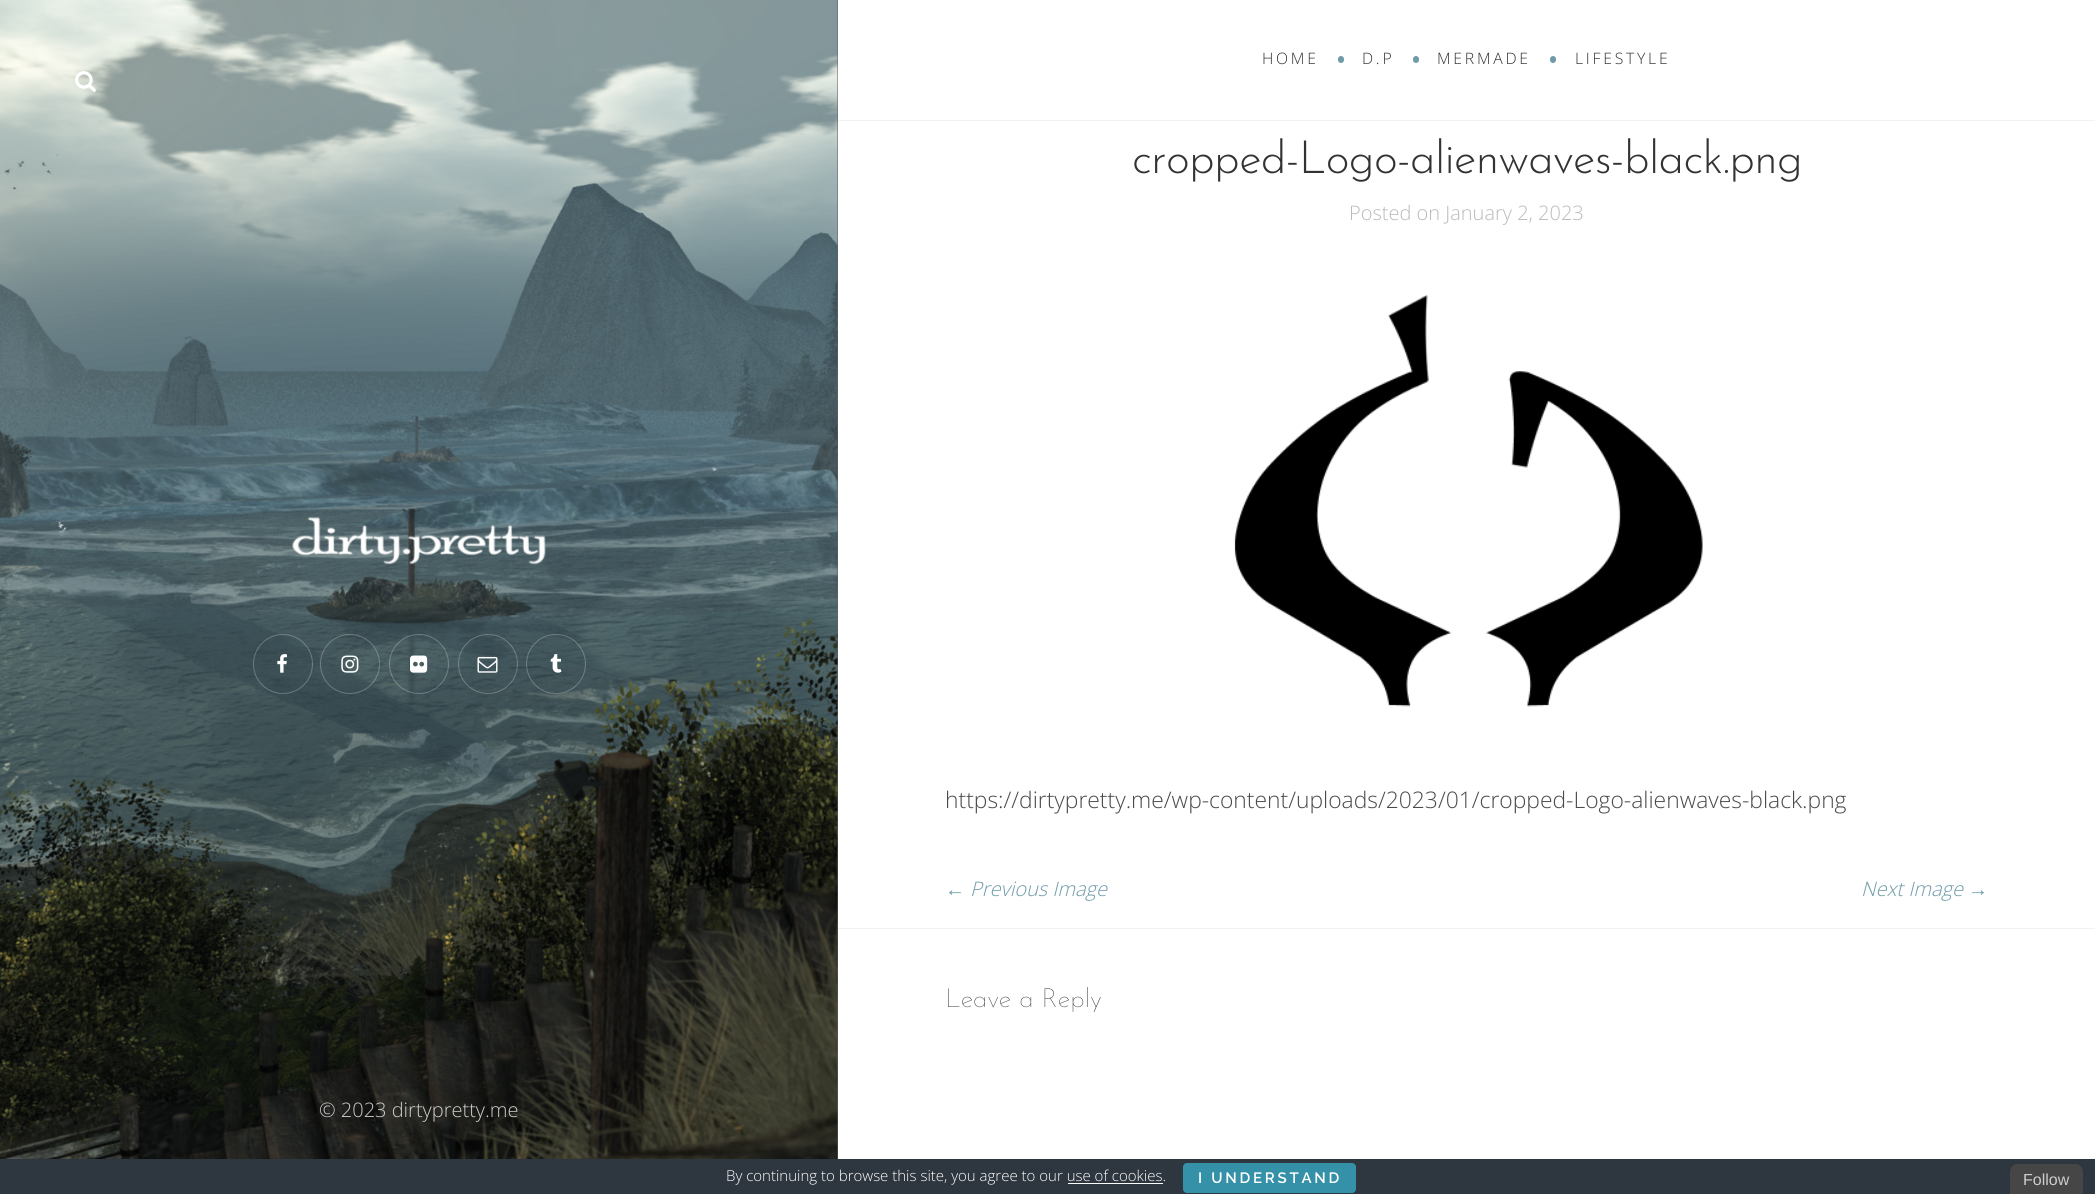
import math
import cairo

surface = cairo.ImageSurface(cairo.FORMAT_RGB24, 2095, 1194)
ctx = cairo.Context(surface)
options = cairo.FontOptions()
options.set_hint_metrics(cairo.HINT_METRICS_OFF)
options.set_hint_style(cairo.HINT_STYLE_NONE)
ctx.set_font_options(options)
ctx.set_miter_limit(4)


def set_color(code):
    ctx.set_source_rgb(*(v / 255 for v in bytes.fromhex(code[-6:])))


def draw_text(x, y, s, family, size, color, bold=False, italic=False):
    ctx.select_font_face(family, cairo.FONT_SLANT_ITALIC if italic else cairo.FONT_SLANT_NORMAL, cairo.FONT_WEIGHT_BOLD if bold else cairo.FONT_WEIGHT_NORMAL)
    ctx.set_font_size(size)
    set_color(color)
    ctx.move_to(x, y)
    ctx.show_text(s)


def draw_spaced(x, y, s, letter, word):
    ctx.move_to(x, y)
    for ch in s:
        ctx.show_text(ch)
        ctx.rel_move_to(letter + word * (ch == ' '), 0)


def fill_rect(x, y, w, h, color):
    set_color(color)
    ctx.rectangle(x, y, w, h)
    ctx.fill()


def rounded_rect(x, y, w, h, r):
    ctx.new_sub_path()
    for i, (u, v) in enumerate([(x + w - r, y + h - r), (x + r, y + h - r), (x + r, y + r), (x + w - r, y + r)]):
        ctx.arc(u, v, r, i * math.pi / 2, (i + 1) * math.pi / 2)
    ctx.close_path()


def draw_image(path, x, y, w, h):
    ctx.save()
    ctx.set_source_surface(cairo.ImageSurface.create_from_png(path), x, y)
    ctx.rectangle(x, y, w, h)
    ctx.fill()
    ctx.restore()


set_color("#ffffff")
ctx.paint()
fill_rect(838, 120, 1257, 1, "#f2f2f2")
ctx.select_font_face("Open Sans Light")
ctx.set_font_size(15.75)
set_color("#333333")
draw_spaced(1262, 64, "HOME", 2.75, 0)
set_color("#6f9ba8")
rounded_rect(1338, 56, 6, 7, 3)
ctx.fill()
set_color("#333333")
draw_spaced(1362, 64, "D.P", 2.75, 0)
set_color("#6f9ba8")
rounded_rect(1413, 56, 6, 7, 3)
ctx.fill()
set_color("#333333")
draw_spaced(1437, 64, "MERMADE", 2.75, 0)
set_color("#6f9ba8")
rounded_rect(1550, 56, 6, 7, 3)
ctx.fill()
set_color("#333333")
draw_spaced(1575, 64, "LIFESTYLE", 2.75, 0)
fill_rect(838, 928, 1257, 1, "#f2f2f2")
ctx.select_font_face("Josefin Sans Light")
ctx.set_font_size(45.75)
set_color("#333333")
draw_spaced(1132, 173, "cropped-Logo-alienwaves-black.png", -0.7, 0)
draw_text(1349, 220, "Posted on January 2, 2023", "Open Sans Light", 20, "#bababa")
draw_image("assets/img1.png", 1234, 295, 469, 412)
draw_text(945, 808, "https://dirtypretty.me/wp-content/uploads/2023/01/cropped-Logo-alienwaves-black.png", "Open Sans Light", 22.85, "#4a4a4a")
draw_text(945, 896, "←", "Liberation Sans", 20, "#6f9ba8", italic=True)
draw_text(970, 896, "Previous Image", "Open Sans Light", 20, "#6f9ba8", italic=True)
draw_text(1861, 896, "Next Image", "Open Sans Light", 20, "#6f9ba8", italic=True)
draw_text(1968, 896, "→", "Liberation Sans", 20, "#6f9ba8", italic=True)
draw_text(945, 1007, "Leave a Reply", "Josefin Sans Thin", 26.5, "#333333")
fill_rect(837, 0, 1, 1159, "#5f5f5f")
draw_image("assets/img2.png", 0, 0, 838, 1159)
draw_image("assets/img3.png", 75, 71, 21, 21)
draw_image("assets/img4.png", 291, 516, 255, 49)
ctx.arc(283, 664, 29.5, 0, 2 * math.pi)
ctx.set_source_rgba(1, 1, 1, 0.25)
ctx.set_line_width(1)
ctx.stroke()
draw_image("assets/img5.png", 277, 654, 10, 19)
ctx.arc(350, 664, 29.5, 0, 2 * math.pi)
ctx.stroke()
draw_image("assets/img6.png", 341, 655, 18, 18)
ctx.arc(419, 664, 29.5, 0, 2 * math.pi)
ctx.stroke()
draw_image("assets/img7.png", 410, 655, 18, 18)
ctx.arc(488, 664, 29.5, 0, 2 * math.pi)
ctx.stroke()
draw_image("assets/img8.png", 477, 656, 21, 17)
ctx.arc(556, 664, 29.5, 0, 2 * math.pi)
ctx.stroke()
draw_image("assets/img9.png", 550, 654, 12, 19)
draw_text(319, 1117, "© 2023 dirtypretty.me", "Open Sans Light", 20, "#cccccc")
fill_rect(0, 1159, 2095, 35, "#2e363f")
draw_text(726, 1181, "By continuing to browse this site, you agree to our use of cookies.", "Open Sans Light", 15, "#ffffff")
set_color("#3591a8")
rounded_rect(1183, 1163, 173, 30, 4)
ctx.fill()
ctx.select_font_face("Raleway SemiBold")
set_color("#ffffff")
draw_spaced(1198, 1183, "I UNDERSTAND", 2.75, 0)
fill_rect(1068, 1183, 95, 1, "#ffffff")
set_color("#464646")
ctx.new_path()
ctx.move_to(2018, 1164)
ctx.line_to(2075, 1164)
ctx.curve_to(2079.5, 1164, 2083, 1167.5, 2083, 1172)
ctx.line_to(2083, 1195)
ctx.line_to(2010, 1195)
ctx.line_to(2010, 1172)
ctx.curve_to(2010, 1167.5, 2013.5, 1164, 2018, 1164)
ctx.close_path()
ctx.fill()
draw_text(2023, 1185, "Follow", "Liberation Sans", 16, "#cccccc")
surface.write_to_png("output.png")
